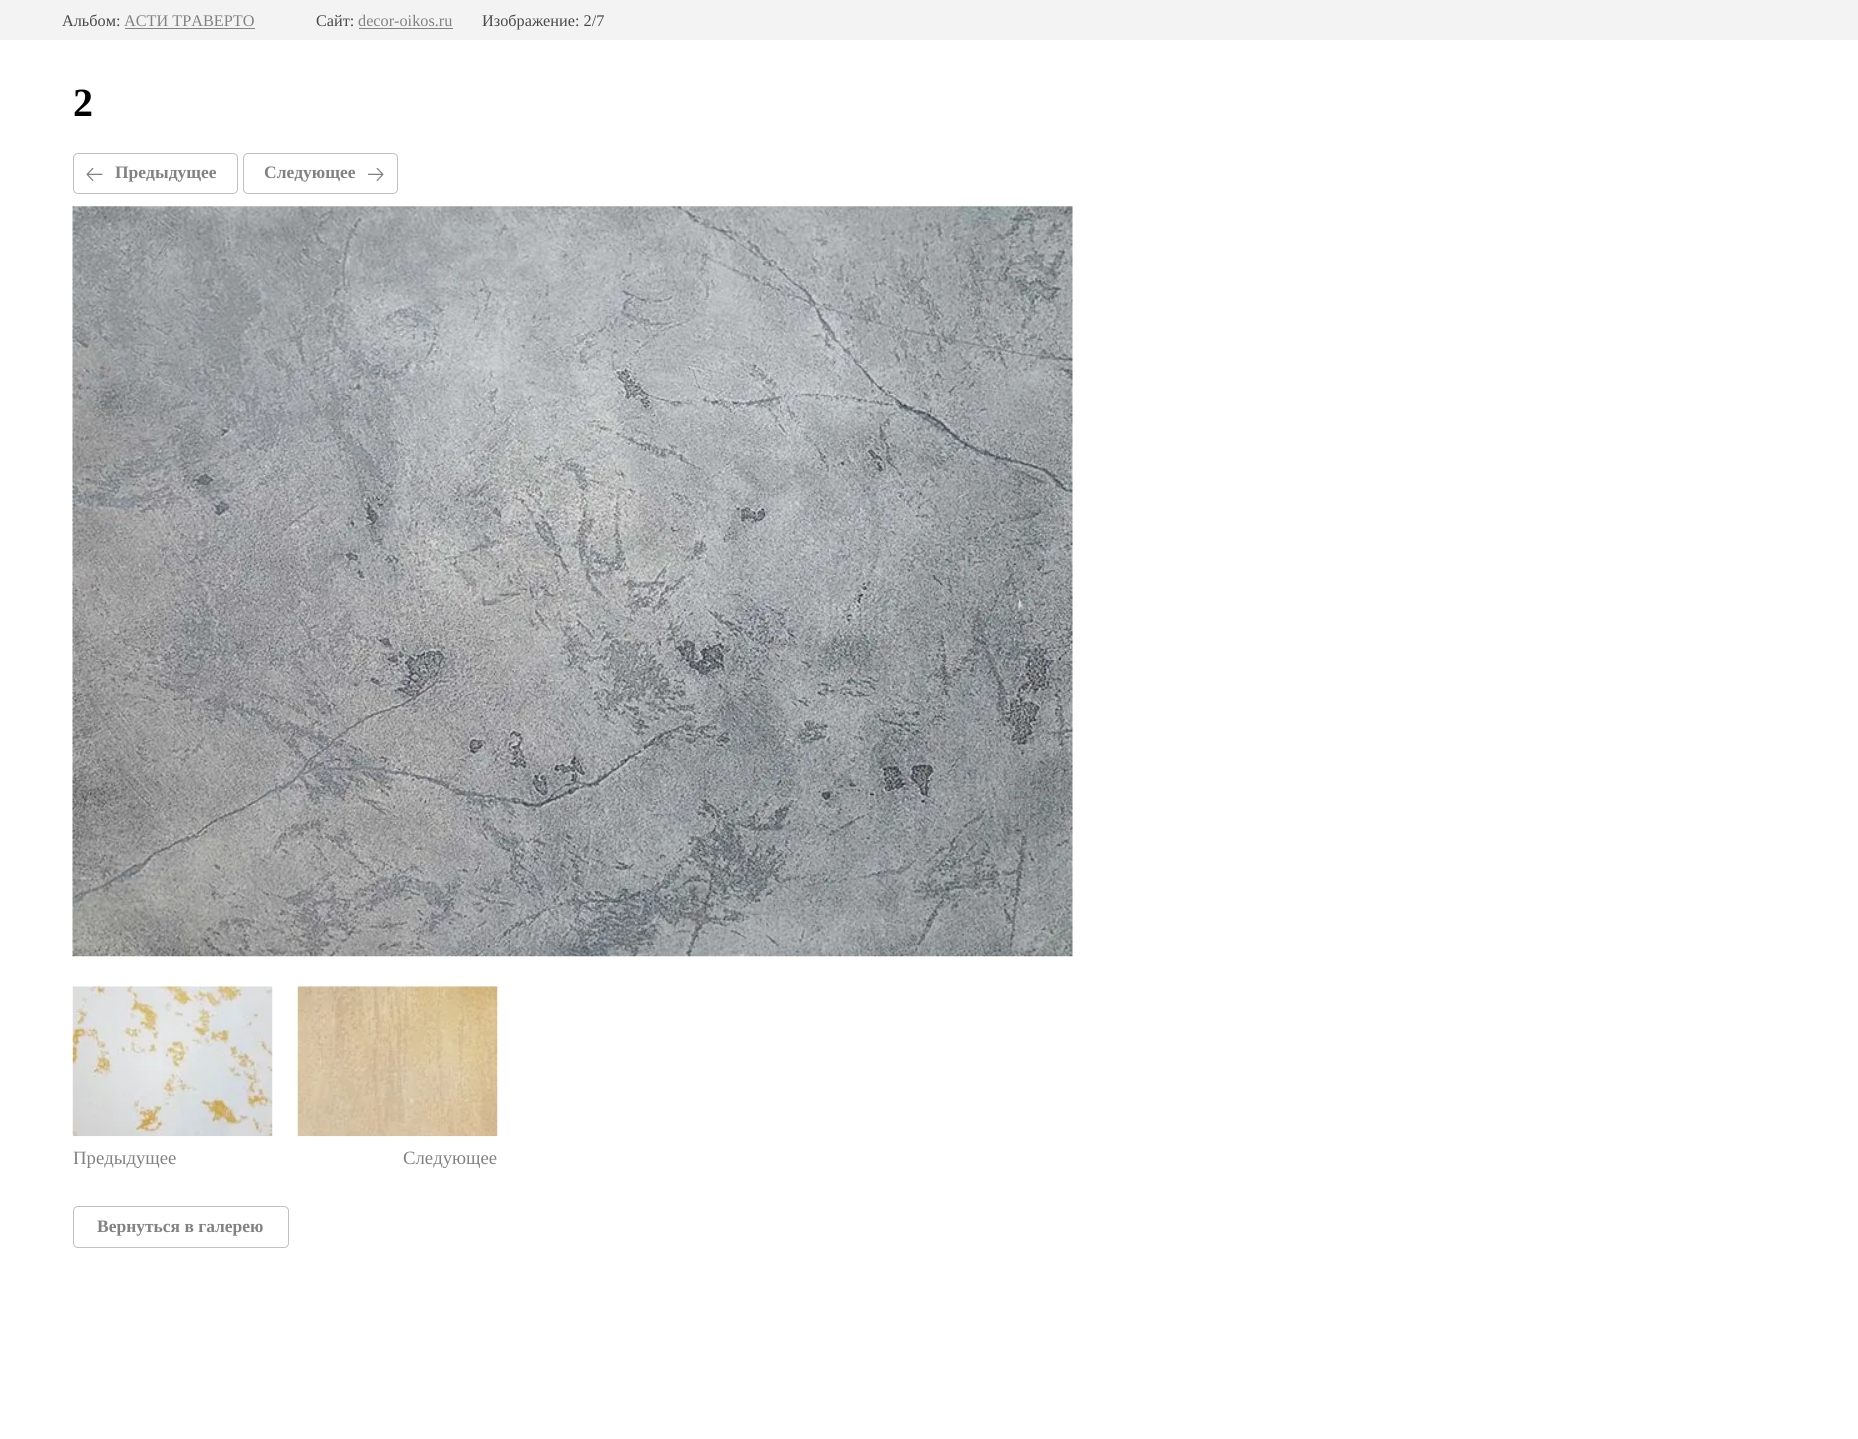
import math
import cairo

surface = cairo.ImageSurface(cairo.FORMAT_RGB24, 1858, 1439)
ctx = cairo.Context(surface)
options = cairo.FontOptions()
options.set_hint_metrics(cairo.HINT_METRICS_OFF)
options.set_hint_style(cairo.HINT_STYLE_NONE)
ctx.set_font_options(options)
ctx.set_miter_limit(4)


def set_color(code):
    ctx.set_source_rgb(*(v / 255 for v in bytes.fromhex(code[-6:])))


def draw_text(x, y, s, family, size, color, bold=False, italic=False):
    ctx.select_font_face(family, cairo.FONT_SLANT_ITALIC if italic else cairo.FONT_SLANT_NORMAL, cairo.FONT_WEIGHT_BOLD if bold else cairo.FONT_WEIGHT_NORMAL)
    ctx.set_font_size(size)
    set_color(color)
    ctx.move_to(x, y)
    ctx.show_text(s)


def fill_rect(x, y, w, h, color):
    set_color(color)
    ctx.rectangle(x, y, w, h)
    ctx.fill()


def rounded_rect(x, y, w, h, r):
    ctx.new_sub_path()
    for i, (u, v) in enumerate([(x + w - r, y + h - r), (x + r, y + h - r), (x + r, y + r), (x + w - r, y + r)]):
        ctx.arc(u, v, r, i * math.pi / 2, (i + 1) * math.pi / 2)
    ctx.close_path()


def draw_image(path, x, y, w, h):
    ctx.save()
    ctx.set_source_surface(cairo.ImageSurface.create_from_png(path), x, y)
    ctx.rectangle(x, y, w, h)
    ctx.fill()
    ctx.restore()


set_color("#ffffff")
ctx.paint()
fill_rect(0, 0, 1858, 40, "#f3f3f3")
draw_text(62, 26, "Альбом:", "Liberation Serif", 16.25, "#484848")
draw_text(124, 26, "АСТИ ТРАВЕРТО", "Liberation Serif", 16.25, "#828282")
fill_rect(125, 28, 130, 1, "#828282")
draw_text(316, 26, "Сайт:", "Liberation Serif", 16.25, "#484848")
draw_text(358, 26, "decor-oikos.ru", "Liberation Serif", 16.25, "#828282")
fill_rect(359, 28, 94, 1, "#828282")
draw_text(482, 26, "Изображение: 2/7", "Liberation Serif", 16.25, "#484848")
draw_text(73, 116, "2", "Liberation Serif", 40, "#000000", bold=True)
rounded_rect(73.5, 153.5, 164, 40, 4.5)
set_color("#c1c1c1")
ctx.set_line_width(1)
ctx.stroke()
draw_image("assets/img1.png", 86, 168, 17, 13)
draw_text(115, 178, "Предыдущее", "Liberation Serif", 17.5, "#828282", bold=True)
rounded_rect(243.5, 153.5, 154, 40, 4.5)
set_color("#c1c1c1")
ctx.stroke()
draw_text(264, 178, "Следующее", "Liberation Serif", 17.5, "#828282", bold=True)
draw_image("assets/img2.png", 368, 168, 16, 13)
draw_image("assets/img3.png", 72, 206, 1001, 751)
draw_image("assets/img4.png", 72, 986, 201, 151)
draw_text(73, 1164, "Предыдущее", "Liberation Serif", 18.75, "#828282")
draw_image("assets/img5.png", 297, 986, 201, 151)
draw_text(403, 1164, "Следующее", "Liberation Serif", 18.75, "#828282")
rounded_rect(73.5, 1206.5, 215, 41, 4.5)
set_color("#c1c1c1")
ctx.stroke()
draw_text(97, 1232, "Вернуться в галерею", "Liberation Serif", 17.5, "#828282", bold=True)
surface.write_to_png("output.png")
